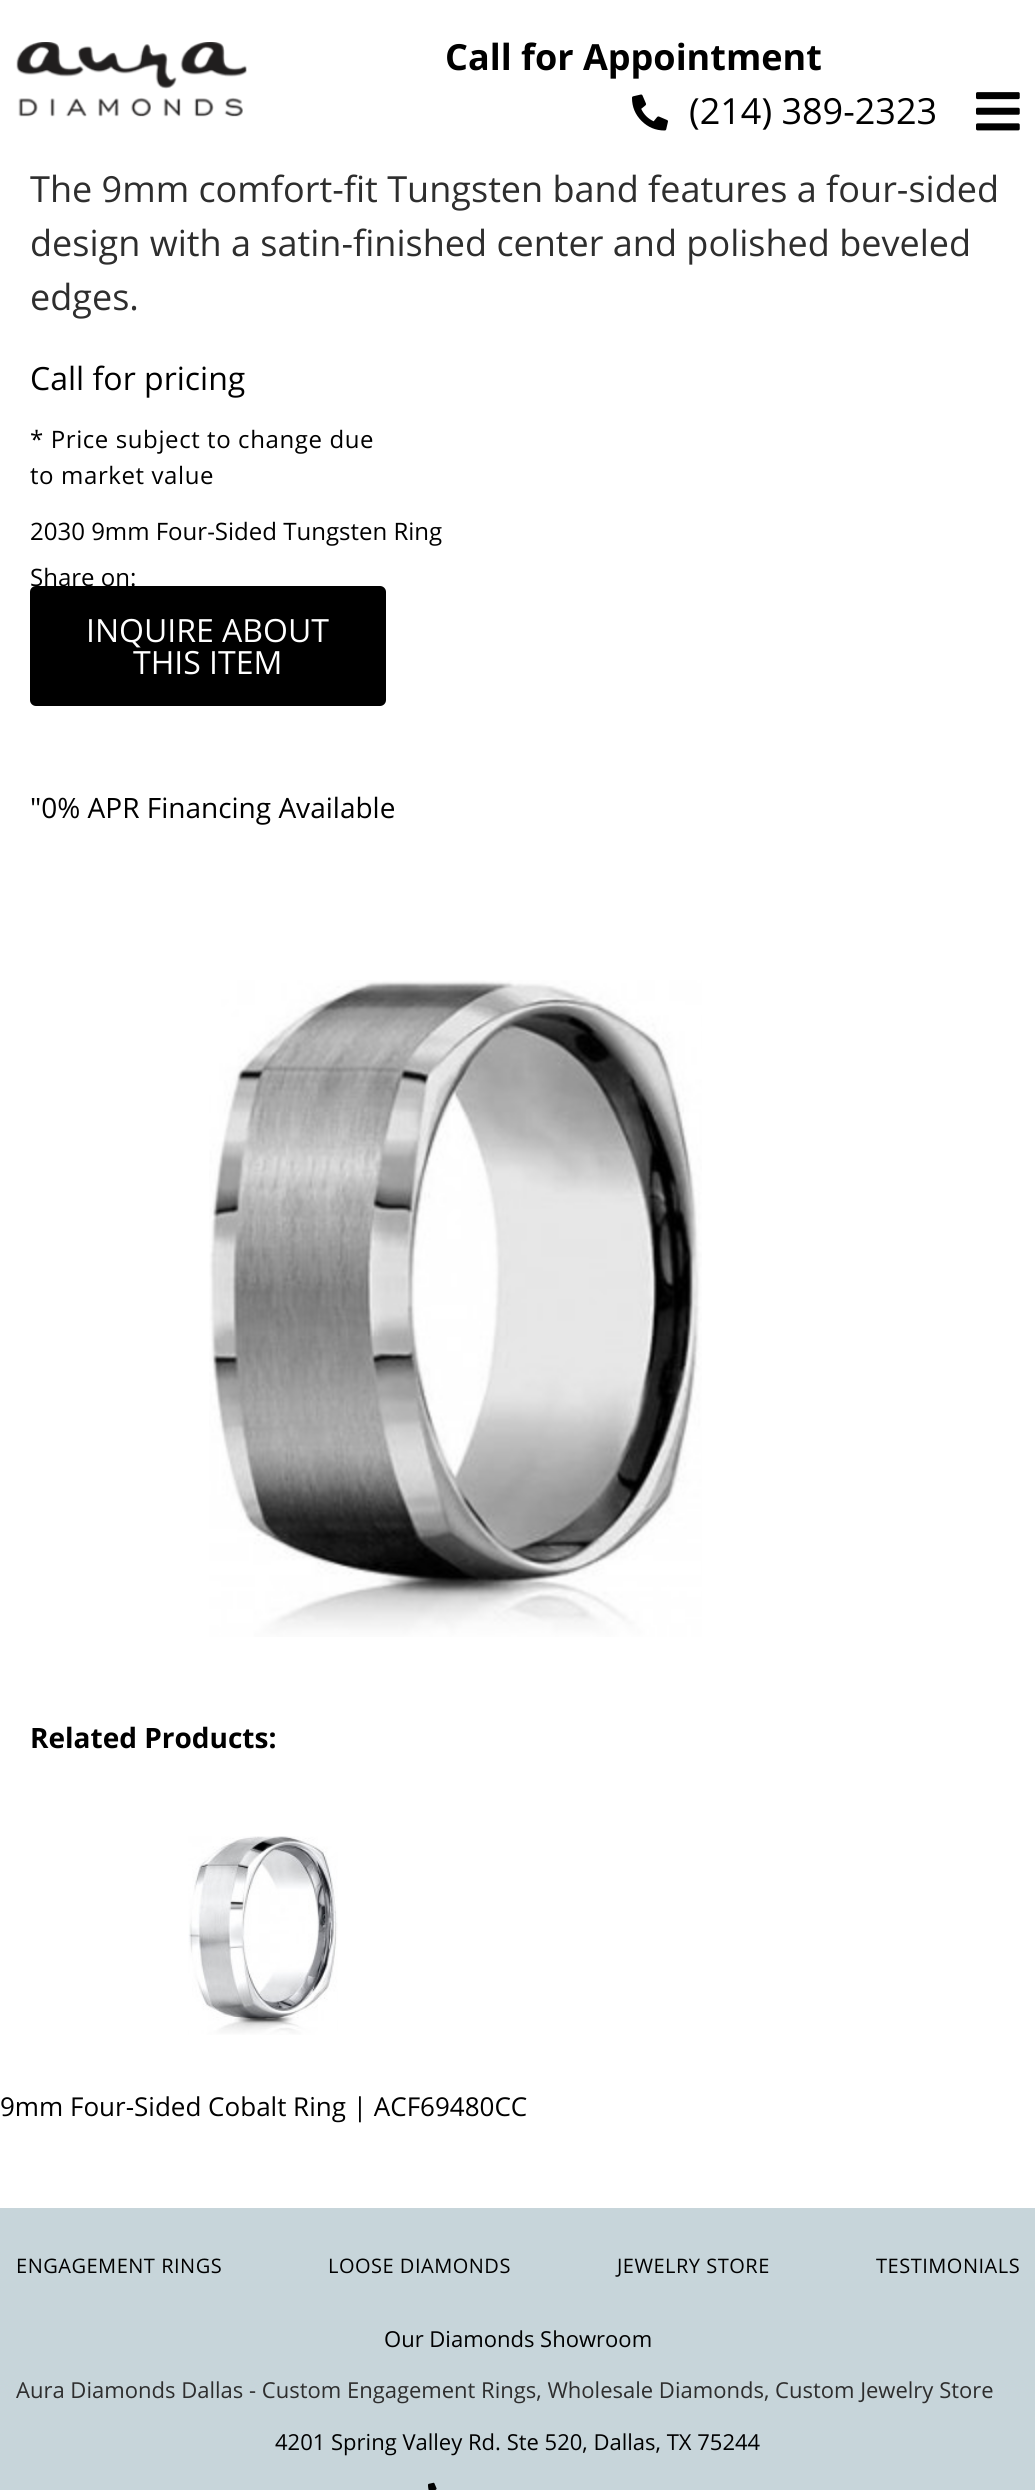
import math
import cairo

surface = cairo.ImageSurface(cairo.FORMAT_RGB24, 1035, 2490)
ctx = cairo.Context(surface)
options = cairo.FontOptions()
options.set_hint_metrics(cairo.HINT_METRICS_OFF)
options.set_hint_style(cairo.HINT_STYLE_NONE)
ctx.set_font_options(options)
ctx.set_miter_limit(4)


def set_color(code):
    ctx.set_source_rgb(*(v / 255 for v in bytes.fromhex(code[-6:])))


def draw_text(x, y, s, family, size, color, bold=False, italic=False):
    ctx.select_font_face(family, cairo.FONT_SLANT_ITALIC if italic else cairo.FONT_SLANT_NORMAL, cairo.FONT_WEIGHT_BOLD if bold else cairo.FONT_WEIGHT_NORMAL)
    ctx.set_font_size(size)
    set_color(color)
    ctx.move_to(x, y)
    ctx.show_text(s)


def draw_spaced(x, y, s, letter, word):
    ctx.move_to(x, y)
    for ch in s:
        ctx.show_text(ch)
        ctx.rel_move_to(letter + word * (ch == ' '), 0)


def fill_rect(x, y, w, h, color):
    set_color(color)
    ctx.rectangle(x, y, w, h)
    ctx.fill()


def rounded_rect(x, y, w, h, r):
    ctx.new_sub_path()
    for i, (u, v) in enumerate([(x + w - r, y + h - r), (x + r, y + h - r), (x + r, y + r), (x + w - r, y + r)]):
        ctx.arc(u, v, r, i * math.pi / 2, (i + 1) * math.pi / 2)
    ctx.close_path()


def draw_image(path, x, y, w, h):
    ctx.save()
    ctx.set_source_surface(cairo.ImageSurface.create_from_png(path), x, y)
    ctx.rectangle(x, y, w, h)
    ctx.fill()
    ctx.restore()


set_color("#ffffff")
ctx.paint()
draw_image("assets/img1.png", 16, 42, 231, 75)
draw_text(445, 70, "Call for Appointment", "Open Sans", 36, "#000000", bold=True)
draw_image("assets/img2.png", 632, 94, 36, 37)
draw_text(689, 124, "(214) 389-2323", "Open Sans", 36, "#000000")
draw_image("assets/img3.png", 976, 92, 44, 39)
draw_text(30, 202, "The 9mm comfort-fit Tungsten band features a four-sided", "Open Sans", 36, "#2e2e2e")
draw_text(30, 256, "design with a satin-finished center and polished beveled", "Open Sans", 36, "#2e2e2e")
draw_text(30, 310, "edges.", "Open Sans", 36, "#2e2e2e")
draw_text(30, 390, "Call for pricing", "Open Sans", 32, "#000000")
ctx.set_font_size(24)
draw_spaced(30, 448, "* Price subject to change due", 0.6, 0)
draw_spaced(30, 484, "to market value", 0.6, 0)
draw_text(30, 540, "2030 9mm Four-Sided Tungsten Ring", "Open Sans", 24, "#000000")
draw_text(30, 586, "Share on:", "Open Sans", 24, "#000000")
rounded_rect(30, 586, 356, 120, 6)
ctx.fill()
draw_text(86, 642, "INQUIRE ABOUT", "Open Sans", 32, "#ffffff")
draw_text(133, 674, "THIS ITEM", "Open Sans", 32, "#ffffff")
draw_text(30, 818, "\"0% APR Financing Available", "Open Sans", 28, "#000000")
draw_image("assets/img4.png", 209, 980, 493, 657)
draw_text(30, 1748, "Related Products:", "Open Sans", 28, "#000000", bold=True)
draw_image("assets/img5.png", 188, 1836, 150, 199)
draw_text(0, 2116, "9mm Four-Sided Cobalt Ring | ACF69480CC", "Open Sans", 26, "#000000")
fill_rect(0, 2208, 1035, 282, "#c7d5da")
ctx.set_font_size(20)
set_color("#000000")
draw_spaced(16, 2273, "ENGAGEMENT RINGS", 0.5, 0)
draw_spaced(328, 2273, "LOOSE DIAMONDS", 0.5, 0)
draw_spaced(617, 2273, "JEWELRY STORE", 0.5, 0)
draw_spaced(876, 2273, "TESTIMONIALS", 0.5, 0)
draw_text(384, 2347, "Our Diamonds Showroom", "Open Sans", 22, "#000000")
draw_text(16, 2398, "Aura Diamonds Dallas - Custom Engagement Rings, Wholesale Diamonds, Custom Jewelry Store", "Open Sans", 22, "#2e2e2e")
draw_text(275, 2450, "4201 Spring Valley Rd. Ste 520, Dallas, TX 75244", "Open Sans", 22, "#000000")
draw_image("assets/img6.png", 428, 2482, 9, 8)
surface.write_to_png("output.png")
